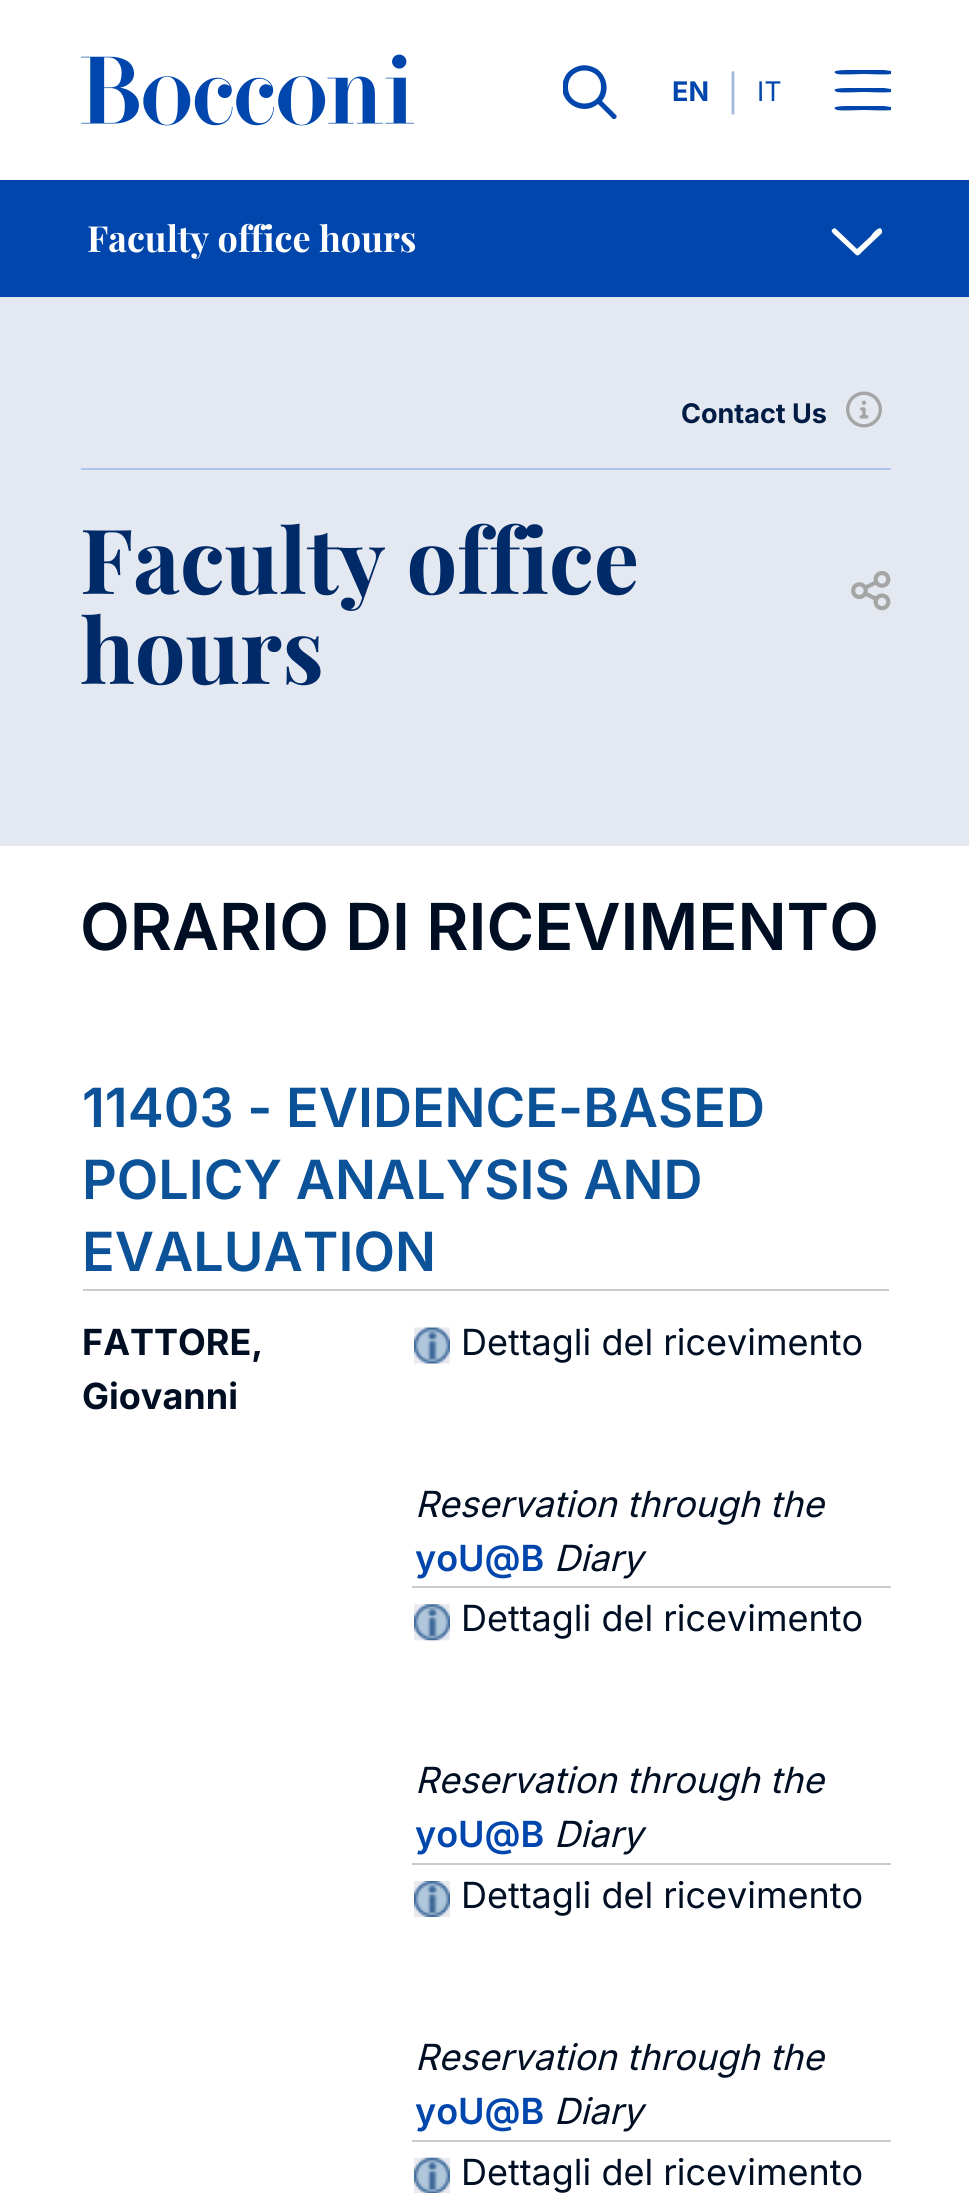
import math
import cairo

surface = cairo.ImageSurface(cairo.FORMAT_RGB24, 969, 2193)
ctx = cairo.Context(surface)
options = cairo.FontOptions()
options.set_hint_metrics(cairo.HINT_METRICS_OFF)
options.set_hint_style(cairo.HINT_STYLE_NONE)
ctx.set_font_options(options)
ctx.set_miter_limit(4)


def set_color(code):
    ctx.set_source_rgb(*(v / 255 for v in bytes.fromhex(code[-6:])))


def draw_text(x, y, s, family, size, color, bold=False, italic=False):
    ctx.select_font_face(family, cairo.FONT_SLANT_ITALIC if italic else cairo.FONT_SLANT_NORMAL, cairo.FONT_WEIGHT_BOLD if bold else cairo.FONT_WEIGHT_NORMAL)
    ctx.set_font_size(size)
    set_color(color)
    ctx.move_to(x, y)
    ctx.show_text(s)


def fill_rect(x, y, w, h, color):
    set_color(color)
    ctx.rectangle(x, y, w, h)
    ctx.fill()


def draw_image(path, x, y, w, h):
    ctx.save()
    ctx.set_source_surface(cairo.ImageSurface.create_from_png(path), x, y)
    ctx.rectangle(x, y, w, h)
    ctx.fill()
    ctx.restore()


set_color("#ffffff")
ctx.paint()
draw_image("assets/img1.png", 81, 54, 333, 72)
ctx.save()
ctx.rectangle(563, 65, 56, 54)
ctx.clip()
set_color("#0046ad")
ctx.new_path()
ctx.move_to(616, 115)
ctx.curve_to(618, 117, 615, 120, 613, 119)
ctx.line_to(598, 104)
ctx.curve_to(581, 118, 555, 100, 564, 79)
ctx.curve_to(566, 73, 571, 69, 576, 67)
ctx.curve_to(583, 64, 590, 65, 597, 69)
ctx.curve_to(607, 76, 610, 91, 602, 101)
ctx.close_path()
ctx.move_to(568, 87)
ctx.curve_to(568, 109, 601, 109, 601, 87)
ctx.curve_to(601, 65, 568, 65, 568, 87)
ctx.close_path()
ctx.fill()
ctx.restore()
draw_text(672, 101, "EN", "Inter", 27, "#0046ad", bold=True)
draw_text(727, 106, "|", "Inter", 36, "#a2b8d9")
draw_text(757, 101, "IT", "Inter", 27, "#0046ad")
ctx.new_path()
ctx.move_to(848, 70)
ctx.line_to(884, 70)
ctx.line_to(891, 71)
ctx.line_to(891, 74)
ctx.curve_to(887, 75, 868, 74, 864, 74)
ctx.curve_to(860, 74, 841, 75, 837, 74)
ctx.curve_to(828, 70, 846, 70, 848, 70)
ctx.close_path()
ctx.move_to(848, 88)
ctx.line_to(884, 88)
ctx.line_to(891, 89)
ctx.line_to(891, 92)
ctx.curve_to(887, 93, 868, 92, 864, 92)
ctx.curve_to(860, 92, 841, 93, 837, 92)
ctx.curve_to(828, 88, 846, 88, 848, 88)
ctx.close_path()
ctx.move_to(848, 106)
ctx.line_to(884, 106)
ctx.line_to(891, 107)
ctx.line_to(891, 110)
ctx.curve_to(887, 111, 868, 110, 864, 110)
ctx.curve_to(860, 110, 841, 111, 837, 110)
ctx.curve_to(828, 106, 846, 106, 848, 106)
ctx.close_path()
ctx.fill()
fill_rect(0, 180, 969, 117, "#0046ad")
draw_text(87, 252, "Faculty office hours", "Playfair Display", 36, "#ffffff", bold=True)
ctx.new_path()
ctx.move_to(882, 233)
ctx.line_to(863, 251)
ctx.curve_to(857, 257, 858, 257, 852, 251)
ctx.line_to(837, 237)
ctx.curve_to(835, 235, 829, 231, 833, 229)
ctx.curve_to(834, 228, 835, 228, 836, 229)
ctx.line_to(857, 249)
ctx.line_to(871, 236)
ctx.curve_to(871, 235, 881, 223, 882, 231)
ctx.close_path()
ctx.fill()
fill_rect(0, 297, 969, 549, "#e4e9f1")
fill_rect(81, 468, 810, 2, "#abc6ef")
draw_text(681, 423, "Contact Us", "Inter", 27, "#001c45", bold=True)
draw_image("assets/img2.png", 846, 391, 36, 37)
draw_text(80, 594, "Faculty office", "Playfair Display", 90, "#002a68", bold=True)
draw_text(80, 684, "hours", "Playfair Display", 90, "#002a68", bold=True)
draw_image("assets/img3.png", 851, 571, 40, 40)
draw_text(80, 950, "ORARIO DI RICEVIMENTO", "Inter SemiBold", 64.75, "#000e23")
fill_rect(83, 1289, 806, 2, "#cccccc")
draw_text(82, 1127, "11403 - EVIDENCE-BASED", "Inter SemiBold", 54, "#0c5299")
draw_text(82, 1199, "POLICY ANALYSIS AND", "Inter SemiBold", 54, "#0c5299")
draw_text(82, 1271, "EVALUATION", "Inter SemiBold", 54, "#0c5299")
draw_text(82, 1355, "FATTORE,", "Inter", 36, "#000e23", bold=True)
draw_text(82, 1409, "Giovanni", "Inter", 36, "#000e23", bold=True)
fill_rect(412, 1586, 479, 2, "#cccccc")
draw_image("assets/img4.png", 414, 1327, 36, 37)
draw_text(461, 1355, "Dettagli del ricevimento", "Inter", 36, "#000e23")
draw_text(415, 1517, "Reservation through the", "Inter", 36, "#000e23", italic=True)
draw_text(415, 1571, "yoU@B", "Inter SemiBold", 36, "#0046ad")
draw_text(554, 1571, "Diary", "Inter", 36, "#000e23", italic=True)
fill_rect(412, 1863, 479, 2, "#cccccc")
draw_image("assets/img5.png", 414, 1604, 36, 37)
draw_text(461, 1631, "Dettagli del ricevimento", "Inter", 36, "#000e23")
draw_text(415, 1793, "Reservation through the", "Inter", 36, "#000e23", italic=True)
draw_text(415, 1847, "yoU@B", "Inter SemiBold", 36, "#0046ad")
draw_text(554, 1847, "Diary", "Inter", 36, "#000e23", italic=True)
fill_rect(412, 2140, 479, 2, "#cccccc")
draw_image("assets/img6.png", 414, 1881, 36, 36)
draw_text(461, 1908, "Dettagli del ricevimento", "Inter", 36, "#000e23")
draw_text(415, 2070, "Reservation through the", "Inter", 36, "#000e23", italic=True)
draw_text(415, 2124, "yoU@B", "Inter SemiBold", 36, "#0046ad")
draw_text(554, 2124, "Diary", "Inter", 36, "#000e23", italic=True)
draw_image("assets/img7.png", 414, 2157, 36, 36)
draw_text(461, 2185, "Dettagli del ricevimento", "Inter", 36, "#000e23")
surface.write_to_png("output.png")
